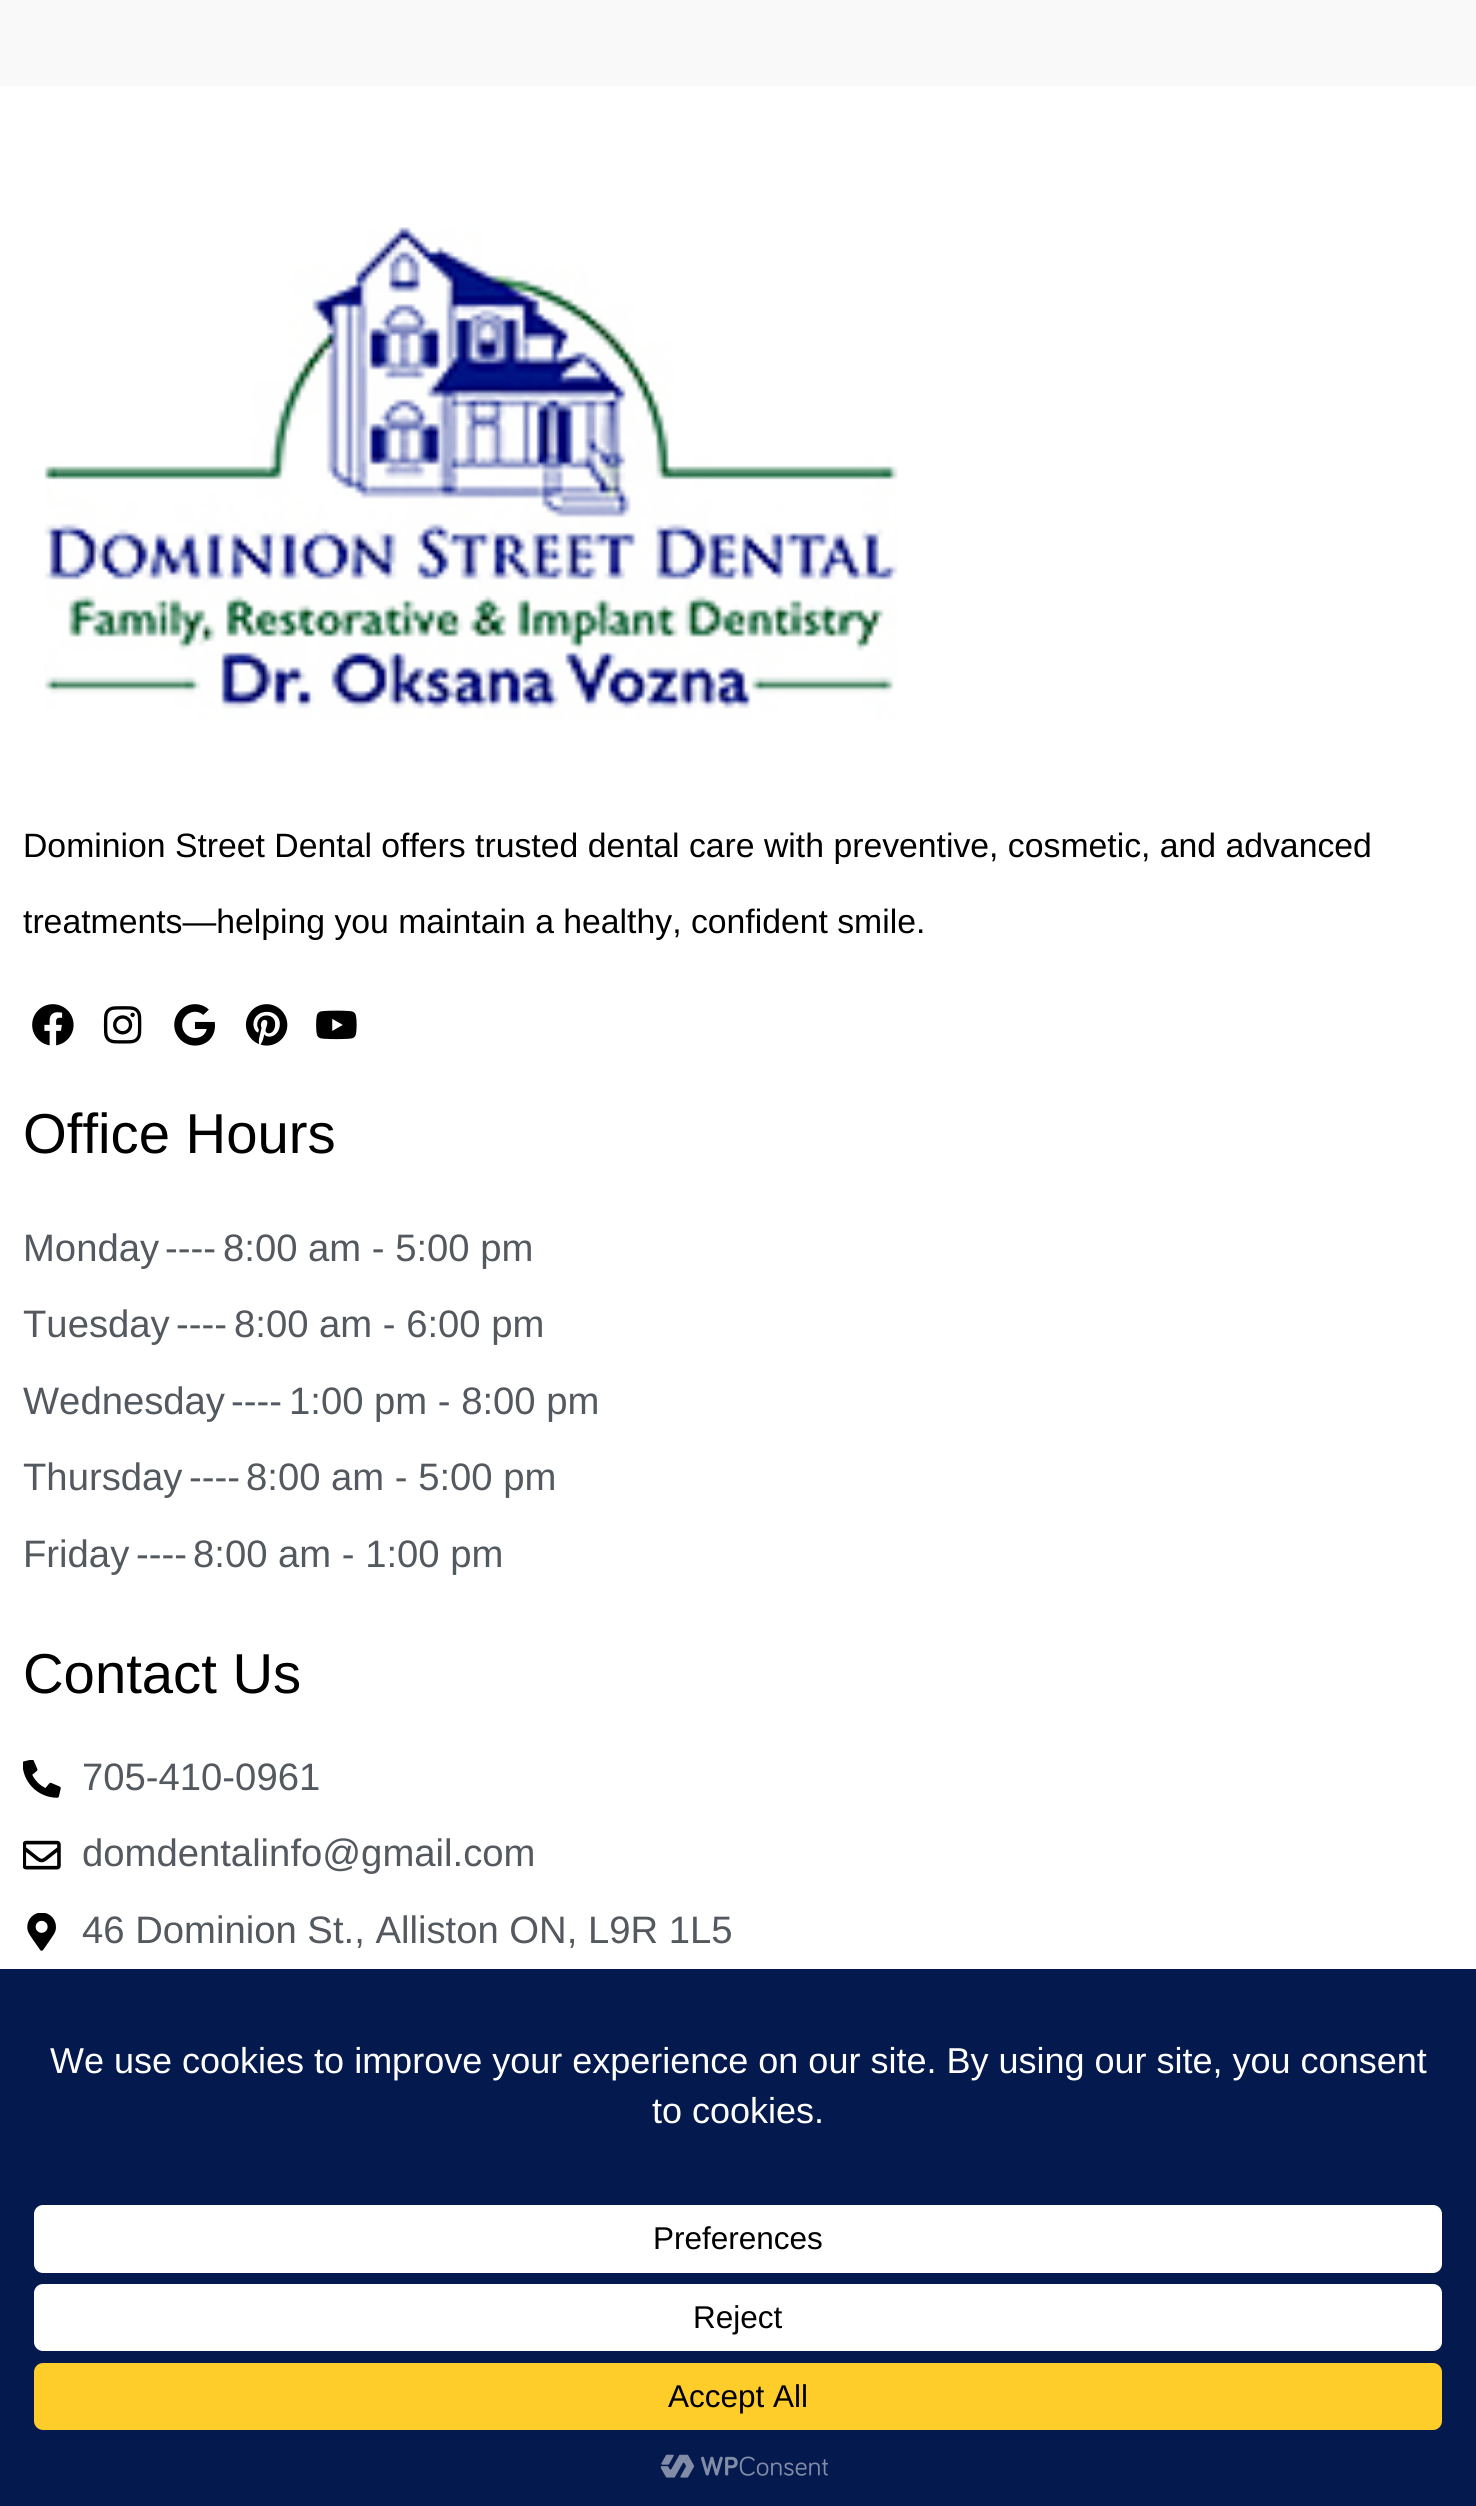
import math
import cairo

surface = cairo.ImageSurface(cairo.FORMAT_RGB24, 1476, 2506)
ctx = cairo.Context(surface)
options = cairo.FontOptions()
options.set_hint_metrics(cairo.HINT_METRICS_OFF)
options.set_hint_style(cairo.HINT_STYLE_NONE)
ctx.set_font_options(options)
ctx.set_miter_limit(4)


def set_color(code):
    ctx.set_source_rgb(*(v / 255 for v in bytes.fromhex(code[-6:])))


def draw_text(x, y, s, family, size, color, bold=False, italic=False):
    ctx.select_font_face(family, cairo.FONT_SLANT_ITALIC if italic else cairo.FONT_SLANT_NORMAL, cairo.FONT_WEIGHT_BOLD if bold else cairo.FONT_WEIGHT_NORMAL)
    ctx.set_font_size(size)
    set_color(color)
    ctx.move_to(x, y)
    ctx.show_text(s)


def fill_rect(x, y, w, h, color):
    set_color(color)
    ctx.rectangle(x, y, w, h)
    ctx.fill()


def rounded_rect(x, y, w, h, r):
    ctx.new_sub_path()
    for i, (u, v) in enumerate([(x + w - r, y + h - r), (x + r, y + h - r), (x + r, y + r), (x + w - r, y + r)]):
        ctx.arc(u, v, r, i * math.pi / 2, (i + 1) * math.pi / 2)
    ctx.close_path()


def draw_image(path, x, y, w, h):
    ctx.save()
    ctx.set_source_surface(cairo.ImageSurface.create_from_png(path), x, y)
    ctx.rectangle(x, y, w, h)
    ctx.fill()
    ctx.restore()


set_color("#ffffff")
ctx.paint()
fill_rect(0, 0, 1476, 86, "#f9f9f9")
draw_image("assets/img1.png", 44, 227, 854, 493)
draw_text(23, 857, "Dominion Street Dental offers trusted dental care with preventive, cosmetic, and advanced", "Liberation Sans", 33.75, "#000000")
draw_text(23, 933, "treatments—helping you maintain a healthy, confident smile.", "Liberation Sans", 33.75, "#000000")
draw_image("assets/img2.png", 32, 1004, 42, 42)
draw_image("assets/img3.png", 103, 1006, 39, 38)
draw_image("assets/img4.png", 174, 1004, 41, 42)
draw_image("assets/img5.png", 245, 1004, 43, 42)
draw_image("assets/img6.png", 316, 1010, 41, 30)
draw_text(23, 1153, "Office Hours", "Liberation Sans", 56.25, "#000000")
draw_text(23, 1261, "Monday", "Liberation Sans", 38.25, "#54595f")
draw_text(165, 1261, "----", "Liberation Sans", 38.25, "#54595f")
draw_text(223, 1261, "8:00 am - 5:00 pm", "Liberation Sans", 38.25, "#54595f")
draw_text(23, 1337, "Tuesday", "Liberation Sans", 38.25, "#54595f")
draw_text(176, 1337, "----", "Liberation Sans", 38.25, "#54595f")
draw_text(234, 1337, "8:00 am - 6:00 pm", "Liberation Sans", 38.25, "#54595f")
draw_text(23, 1414, "Wednesday", "Liberation Sans", 38.25, "#54595f")
draw_text(231, 1414, "----", "Liberation Sans", 38.25, "#54595f")
draw_text(289, 1414, "1:00 pm - 8:00 pm", "Liberation Sans", 38.25, "#54595f")
draw_text(23, 1490, "Thursday", "Liberation Sans", 38.25, "#54595f")
draw_text(189, 1490, "----", "Liberation Sans", 38.25, "#54595f")
draw_text(246, 1490, "8:00 am - 5:00 pm", "Liberation Sans", 38.25, "#54595f")
draw_text(23, 1567, "Friday", "Liberation Sans", 38.25, "#54595f")
draw_text(136, 1567, "----", "Liberation Sans", 38.25, "#54595f")
draw_text(193, 1567, "8:00 am - 1:00 pm", "Liberation Sans", 38.25, "#54595f")
draw_text(23, 1693, "Contact Us", "Liberation Sans", 56.25, "#000000")
draw_image("assets/img7.png", 23, 1760, 38, 38)
draw_text(82, 1790, "705-410-0961", "Liberation Sans", 38.25, "#54595f")
draw_image("assets/img8.png", 23, 1840, 38, 30)
draw_text(82, 1866, "domdentalinfo@gmail.com", "Liberation Sans", 38.25, "#54595f")
draw_image("assets/img9.png", 27, 1913, 29, 38)
draw_text(82, 1943, "46 Dominion St., Alliston ON, L9R 1L5", "Liberation Sans", 38.25, "#54595f")
fill_rect(0, 1969, 1476, 537, "#04194e")
draw_text(50, 2073, "We use cookies to improve your experience on our site. By using our site, you consent", "Liberation Sans", 36, "#ffffff")
draw_text(652, 2123, "to cookies.", "Liberation Sans", 36, "#ffffff")
rounded_rect(34, 2205, 1408, 68, 9)
ctx.fill()
draw_text(653, 2249, "Preferences", "Liberation Sans", 31.5, "#000000")
set_color("#ffffff")
rounded_rect(34, 2284, 1408, 67, 9)
ctx.fill()
draw_text(693, 2328, "Reject", "Liberation Sans", 31.5, "#000000")
set_color("#ffcd2a")
rounded_rect(34, 2363, 1408, 67, 9)
ctx.fill()
draw_text(668, 2407, "Accept All", "Liberation Sans", 31.5, "#000000")
draw_image("assets/img10.png", 660, 2454, 168, 24)
surface.write_to_png("output.png")
